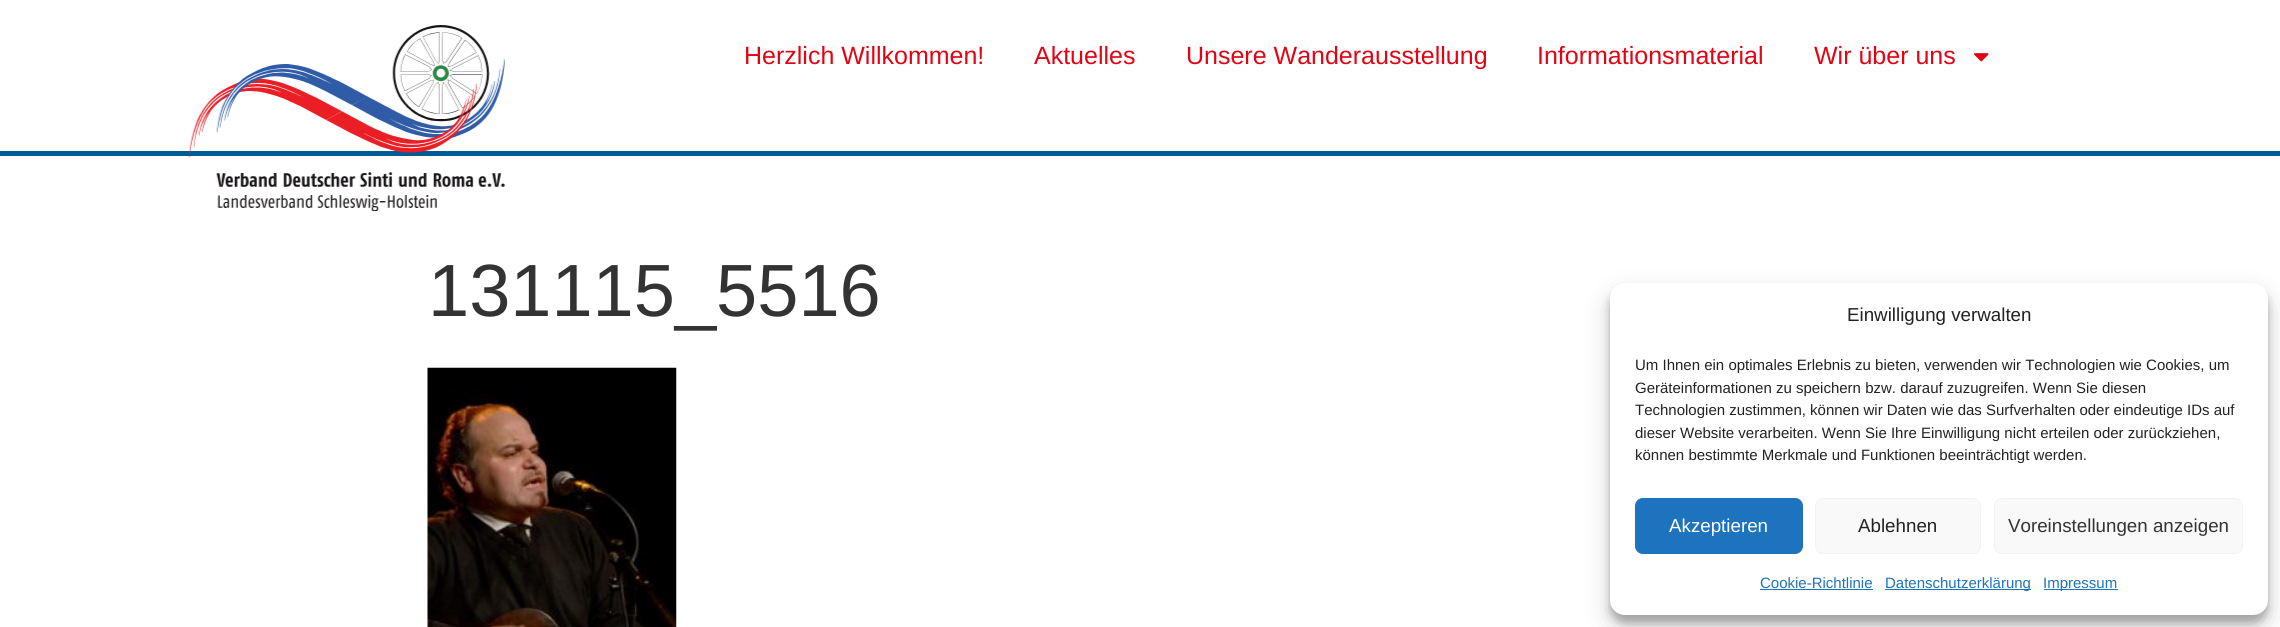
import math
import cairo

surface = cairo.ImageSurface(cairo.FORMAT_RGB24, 2280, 627)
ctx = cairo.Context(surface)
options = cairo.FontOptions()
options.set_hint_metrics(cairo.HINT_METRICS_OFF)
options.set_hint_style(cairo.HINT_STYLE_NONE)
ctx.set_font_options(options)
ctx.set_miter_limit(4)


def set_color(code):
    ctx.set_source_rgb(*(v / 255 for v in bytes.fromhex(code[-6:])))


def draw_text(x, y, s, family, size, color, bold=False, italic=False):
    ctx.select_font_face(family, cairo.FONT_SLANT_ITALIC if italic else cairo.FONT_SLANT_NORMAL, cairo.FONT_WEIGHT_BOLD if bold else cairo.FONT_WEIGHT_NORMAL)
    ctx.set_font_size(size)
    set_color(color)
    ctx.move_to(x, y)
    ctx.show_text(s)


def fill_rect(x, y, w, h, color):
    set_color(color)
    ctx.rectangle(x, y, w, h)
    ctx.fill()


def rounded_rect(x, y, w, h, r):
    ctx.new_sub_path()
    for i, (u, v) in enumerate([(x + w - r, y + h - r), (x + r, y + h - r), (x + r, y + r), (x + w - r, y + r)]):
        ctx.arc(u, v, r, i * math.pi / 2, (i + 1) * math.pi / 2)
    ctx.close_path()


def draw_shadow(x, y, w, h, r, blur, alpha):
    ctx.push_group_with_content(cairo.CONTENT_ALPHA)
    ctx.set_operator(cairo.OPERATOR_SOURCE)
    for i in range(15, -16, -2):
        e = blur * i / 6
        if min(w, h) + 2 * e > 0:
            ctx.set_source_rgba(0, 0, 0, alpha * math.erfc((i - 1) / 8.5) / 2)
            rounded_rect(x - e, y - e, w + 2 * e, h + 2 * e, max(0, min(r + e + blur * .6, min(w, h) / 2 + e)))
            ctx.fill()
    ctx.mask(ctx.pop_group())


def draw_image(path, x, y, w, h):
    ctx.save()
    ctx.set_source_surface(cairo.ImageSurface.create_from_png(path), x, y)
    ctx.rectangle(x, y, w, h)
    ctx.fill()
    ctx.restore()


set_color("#ffffff")
ctx.paint()
fill_rect(0, 151, 2280, 5, "#005b94")
draw_image("assets/img1.png", 188, 25, 317, 186)
draw_text(744, 64, "Herzlich Willkommen!", "Liberation Sans", 25, "#e10414")
draw_text(1034, 64, "Aktuelles", "Liberation Sans", 25, "#e10414")
draw_text(1186, 64, "Unsere Wanderausstellung", "Liberation Sans", 25, "#e10414")
draw_text(1537, 64, "Informationsmaterial", "Liberation Sans", 25, "#e10414")
draw_text(1814, 64, "Wir über uns", "Liberation Sans", 25, "#e10414")
draw_image("assets/img2.png", 1974, 53, 15, 9)
draw_text(428, 316, "131115_5516", "Liberation Sans", 74, "#333333")
draw_image("assets/img3.png", 427, 367, 250, 260)
set_color("#000000")
draw_shadow(1610, 290, 658, 333, 15, 4, 0.23)
draw_shadow(1610, 295, 658, 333, 15, 12.5, 0.19)
set_color("#ffffff")
rounded_rect(1610, 283, 658, 332, 15)
ctx.fill()
draw_text(1847, 321, "Einwilligung verwalten", "Liberation Sans", 18.75, "#222222")
draw_text(1635, 370, "Um Ihnen ein optimales Erlebnis zu bieten, verwenden wir Technologien wie Cookies, um", "Liberation Sans", 15, "#222222")
draw_text(1635, 393, "Geräteinformationen zu speichern bzw. darauf zuzugreifen. Wenn Sie diesen", "Liberation Sans", 15, "#222222")
draw_text(1635, 415, "Technologien zustimmen, können wir Daten wie das Surfverhalten oder eindeutige IDs auf", "Liberation Sans", 15, "#222222")
draw_text(1635, 438, "dieser Website verarbeiten. Wenn Sie Ihre Einwilligung nicht erteilen oder zurückziehen,", "Liberation Sans", 15, "#222222")
draw_text(1635, 460, "können bestimmte Merkmale und Funktionen beeinträchtigt werden.", "Liberation Sans", 15, "#222222")
set_color("#1e73be")
rounded_rect(1635.5, 498.5, 167, 55, 7.5)
ctx.fill_preserve()
ctx.set_line_width(1)
ctx.stroke()
draw_text(1669, 532, "Akzeptieren", "Liberation Sans", 18.75, "#ffffff")
set_color("#f9f9f9")
rounded_rect(1815.5, 498.5, 165, 55, 7.5)
ctx.fill_preserve()
set_color("#f2f2f2")
ctx.stroke()
draw_text(1858, 532, "Ablehnen", "Liberation Sans", 18.75, "#222222")
set_color("#f9f9f9")
rounded_rect(1994.5, 498.5, 248, 55, 7.5)
ctx.fill_preserve()
set_color("#f2f2f2")
ctx.stroke()
draw_text(2008, 532, "Voreinstellungen anzeigen", "Liberation Sans", 18.75, "#333333")
draw_text(1760, 588, "Cookie-Richtlinie", "Liberation Sans", 15, "#1e73be")
fill_rect(1760, 589, 113, 1, "#1e73be")
fill_rect(1885, 589, 146, 1, "#1e73be")
draw_text(1885, 588, "Datenschutzerklärung", "Liberation Sans", 15, "#1e73be")
fill_rect(2044, 589, 74, 1, "#1e73be")
draw_text(2043, 588, "Impressum", "Liberation Sans", 15, "#1e73be")
surface.write_to_png("output.png")
